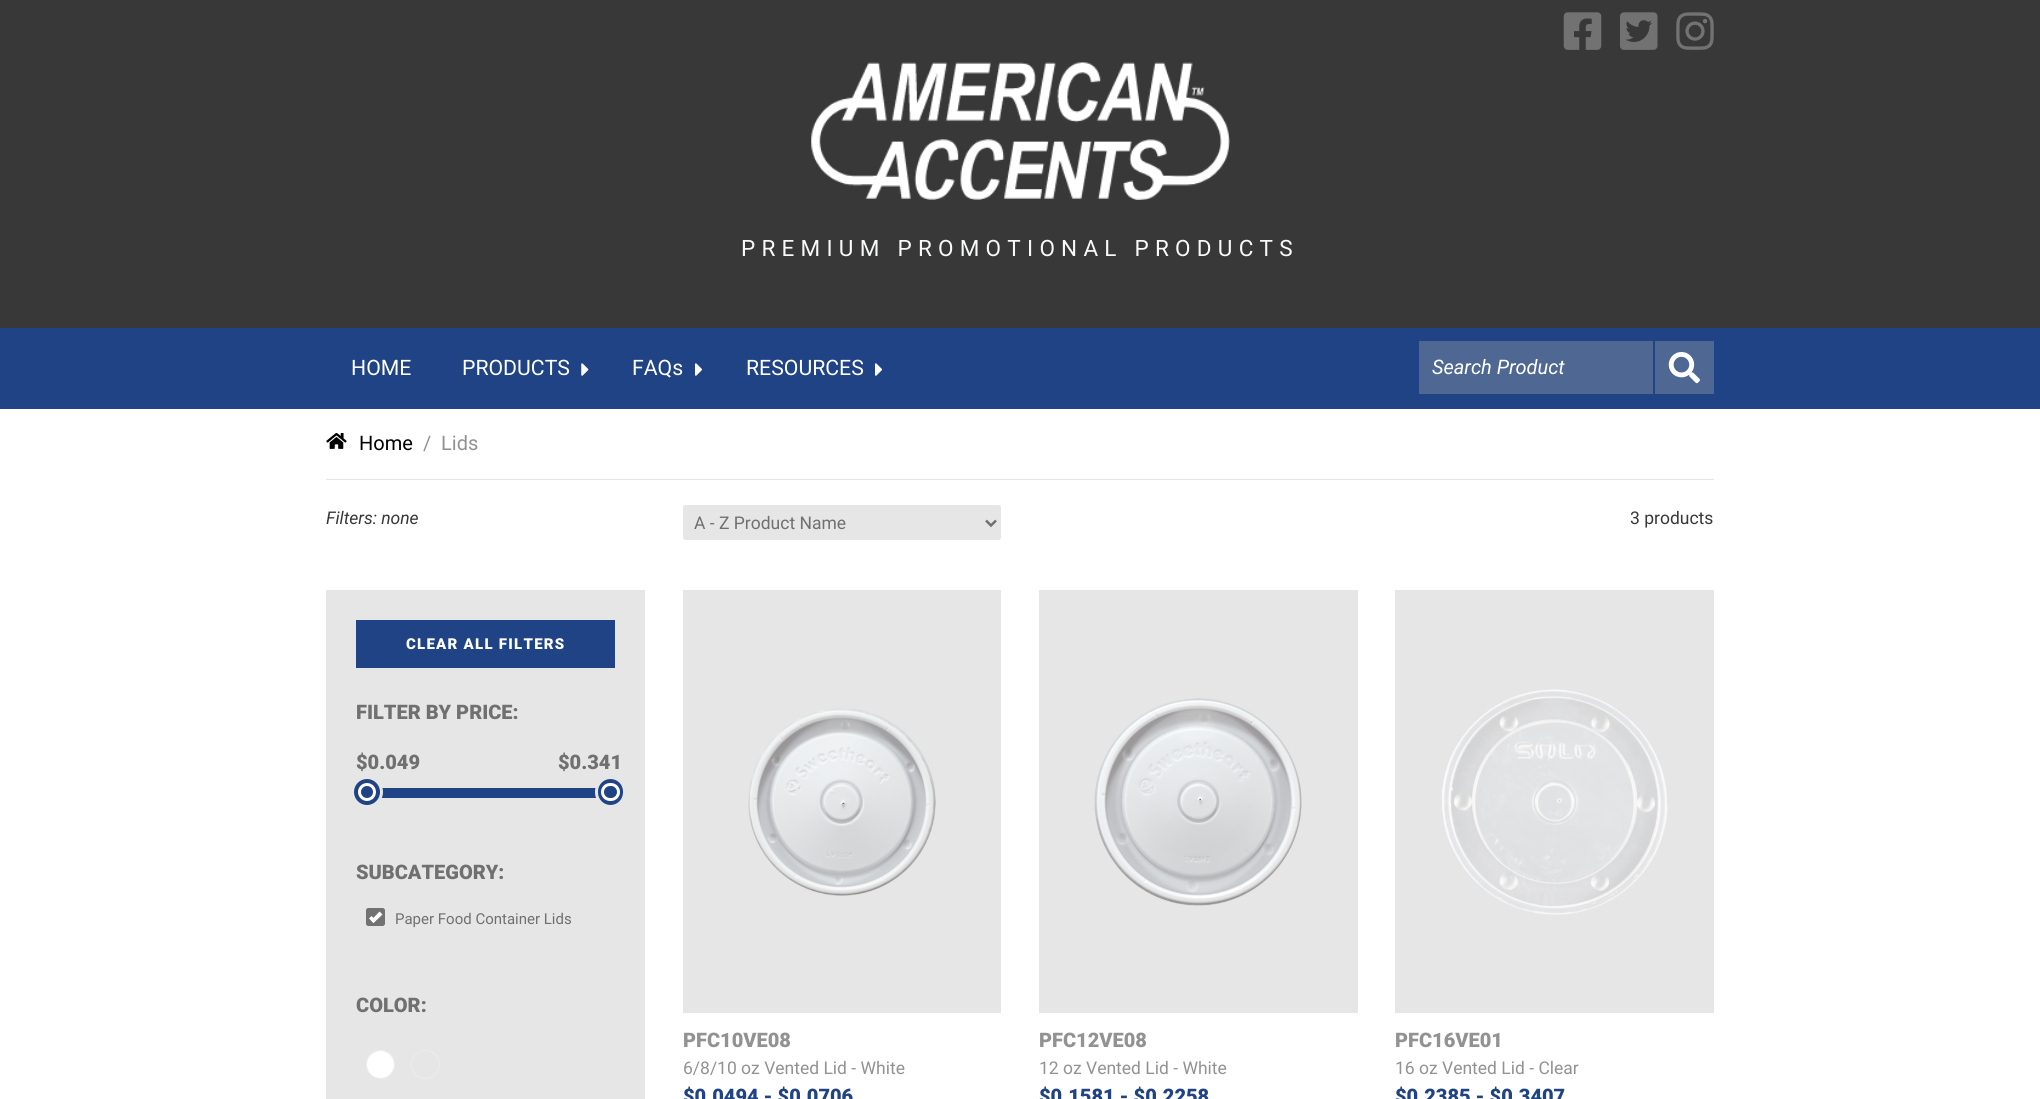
import math
import cairo

surface = cairo.ImageSurface(cairo.FORMAT_RGB24, 2040, 1099)
ctx = cairo.Context(surface)
options = cairo.FontOptions()
options.set_hint_metrics(cairo.HINT_METRICS_OFF)
options.set_hint_style(cairo.HINT_STYLE_NONE)
ctx.set_font_options(options)
ctx.set_miter_limit(4)


def set_color(code):
    ctx.set_source_rgb(*(v / 255 for v in bytes.fromhex(code[-6:])))


def draw_text(x, y, s, family, size, color, bold=False, italic=False):
    ctx.select_font_face(family, cairo.FONT_SLANT_ITALIC if italic else cairo.FONT_SLANT_NORMAL, cairo.FONT_WEIGHT_BOLD if bold else cairo.FONT_WEIGHT_NORMAL)
    ctx.set_font_size(size)
    set_color(color)
    ctx.move_to(x, y)
    ctx.show_text(s)


def draw_spaced(x, y, s, letter, word):
    ctx.move_to(x, y)
    for ch in s:
        ctx.show_text(ch)
        ctx.rel_move_to(letter + word * (ch == ' '), 0)


def fill_rect(x, y, w, h, color):
    set_color(color)
    ctx.rectangle(x, y, w, h)
    ctx.fill()


def rounded_rect(x, y, w, h, r):
    ctx.new_sub_path()
    for i, (u, v) in enumerate([(x + w - r, y + h - r), (x + r, y + h - r), (x + r, y + r), (x + w - r, y + r)]):
        ctx.arc(u, v, r, i * math.pi / 2, (i + 1) * math.pi / 2)
    ctx.close_path()


def draw_image(path, x, y, w, h):
    ctx.save()
    ctx.set_source_surface(cairo.ImageSurface.create_from_png(path), x, y)
    ctx.rectangle(x, y, w, h)
    ctx.fill()
    ctx.restore()


set_color("#ffffff")
ctx.paint()
fill_rect(0, 0, 2040, 328, "#383838")
draw_image("assets/img1.png", 1563, 12, 39, 38)
draw_image("assets/img2.png", 1620, 12, 38, 38)
draw_image("assets/img3.png", 1676, 12, 38, 38)
draw_image("assets/img4.png", 811, 62, 419, 138)
ctx.select_font_face("Roboto")
ctx.set_font_size(22.5)
set_color("#f8f9fa")
draw_spaced(741, 256, "PREMIUM PROMOTIONAL PRODUCTS", 6.25, 0)
fill_rect(0, 328, 2040, 81, "#1f4385")
draw_text(351, 375, "HOME", "Roboto", 21.25, "#ffffff")
draw_text(462, 375, "PRODUCTS", "Roboto", 21.25, "#ffffff")
draw_image("assets/img5.png", 581, 363, 8, 13)
draw_text(632, 375, "FAQs", "Roboto", 21.25, "#ffffff")
draw_image("assets/img6.png", 695, 363, 8, 13)
draw_text(746, 375, "RESOURCES", "Roboto", 21.25, "#ffffff")
draw_image("assets/img6.png", 875, 363, 8, 13)
fill_rect(1419, 341, 234, 53, "#4f6893")
draw_text(1432, 374, "Search Product", "Roboto", 20, "#ffffff", italic=True)
fill_rect(1655, 341, 59, 53, "#4f6893")
draw_image("assets/img7.png", 1668, 352, 32, 32)
draw_image("assets/img8.png", 326, 433, 21, 16)
draw_text(359, 450, "Home", "Roboto", 20, "#000000")
draw_text(423, 450, "/", "Roboto", 20, "#929292")
draw_text(441, 450, "Lids", "Roboto", 20, "#929292")
fill_rect(326, 479, 1388, 1, "#e6e6e6")
draw_text(326, 524, "Filters: none", "Roboto", 17.5, "#383838", italic=True)
set_color("#e6e6e6")
rounded_rect(683, 505, 318, 35, 2.5)
ctx.fill()
ctx.new_path()
ctx.move_to(986, 520.5)
ctx.line_to(991, 525.5)
ctx.line_to(996, 520.5)
set_color("#707070")
ctx.set_line_width(2.5)
ctx.stroke()
draw_text(694, 529, "A - Z Product Name", "Roboto", 17.5, "#707070")
draw_text(1630, 524, "3 products", "Roboto", 17.5, "#383838")
fill_rect(326, 590, 319, 509, "#e6e6e6")
fill_rect(356, 620, 259, 48, "#1f4385")
ctx.select_font_face("Roboto Black")
ctx.set_font_size(15)
set_color("#ffffff")
draw_spaced(406, 649, "CLEAR ALL FILTERS", 1.25, 0)
draw_text(356, 719, "FILTER BY PRICE:", "Roboto Black", 20, "#707070")
draw_text(356, 769, "$0.049", "Roboto Black", 20, "#707070")
draw_text(558, 769, "$0.341", "Roboto Black", 20, "#707070")
fill_rect(381, 788, 215, 10, "#1f4385")
ctx.new_path()
ctx.arc(367, 792, 14.5, 0, 2 * math.pi)
ctx.fill_preserve()
set_color("#e6e6e6")
ctx.set_line_width(3)
ctx.stroke()
ctx.arc(367, 792, 7.5, 0, 2 * math.pi)
set_color("#ffffff")
ctx.stroke()
set_color("#1f4385")
rounded_rect(596.5, 777.5, 28, 29, 14)
ctx.fill_preserve()
set_color("#e6e6e6")
ctx.stroke()
rounded_rect(602.5, 784.5, 16, 15, 7.5)
set_color("#ffffff")
ctx.stroke()
draw_text(356, 879, "SUBCATEGORY:", "Roboto Black", 20, "#707070")
set_color("#727272")
rounded_rect(366.5, 908.5, 18, 17, 2)
ctx.fill_preserve()
ctx.set_line_width(1)
ctx.stroke()
set_color("#ffffff")
ctx.new_path()
ctx.move_to(379.5, 911.5)
ctx.line_to(382.5, 914.5)
ctx.line_to(373.5, 923)
ctx.line_to(371, 920.5)
ctx.close_path()
ctx.fill()
ctx.new_path()
ctx.move_to(371.5, 916)
ctx.line_to(376, 920.5)
ctx.line_to(373.5, 923)
ctx.line_to(369, 918.5)
ctx.close_path()
ctx.fill()
draw_text(395, 924, "Paper Food Container Lids", "Roboto", 15, "#707070")
draw_text(356, 1012, "COLOR:", "Roboto Black", 20, "#707070")
set_color("#ffffff")
ctx.new_path()
ctx.arc(380.5, 1064.5, 14, 0, 2 * math.pi)
ctx.fill_preserve()
set_color("#ececec")
ctx.stroke()
ctx.arc(425.5, 1064.5, 14, 0, 2 * math.pi)
ctx.stroke()
fill_rect(683, 590, 318, 423, "#e6e6e6")
draw_image("assets/img9.png", 748, 708, 188, 188)
draw_text(683, 1047, "PFC10VE08", "Roboto Black", 20, "#929292")
draw_text(683, 1074, "6/8/10 oz Vented Lid - White", "Roboto", 17.5, "#929292")
draw_text(683, 1103, "$0.0494 - $0.0706", "Roboto Black", 20, "#1f4385")
fill_rect(1039, 590, 319, 423, "#e6e6e6")
draw_image("assets/img10.png", 1094, 698, 208, 208)
draw_text(1039, 1047, "PFC12VE08", "Roboto Black", 20, "#929292")
draw_text(1039, 1074, "12 oz Vented Lid - White", "Roboto", 17.5, "#929292")
draw_text(1039, 1103, "$0.1581 - $0.2258", "Roboto Black", 20, "#1f4385")
fill_rect(1395, 590, 319, 423, "#e6e6e6")
draw_image("assets/img11.png", 1442, 689, 226, 226)
draw_text(1395, 1047, "PFC16VE01", "Roboto Black", 20, "#929292")
draw_text(1395, 1074, "16 oz Vented Lid - Clear", "Roboto", 17.5, "#929292")
draw_text(1395, 1103, "$0.2385 - $0.3407", "Roboto Black", 20, "#1f4385")
surface.write_to_png("output.png")
